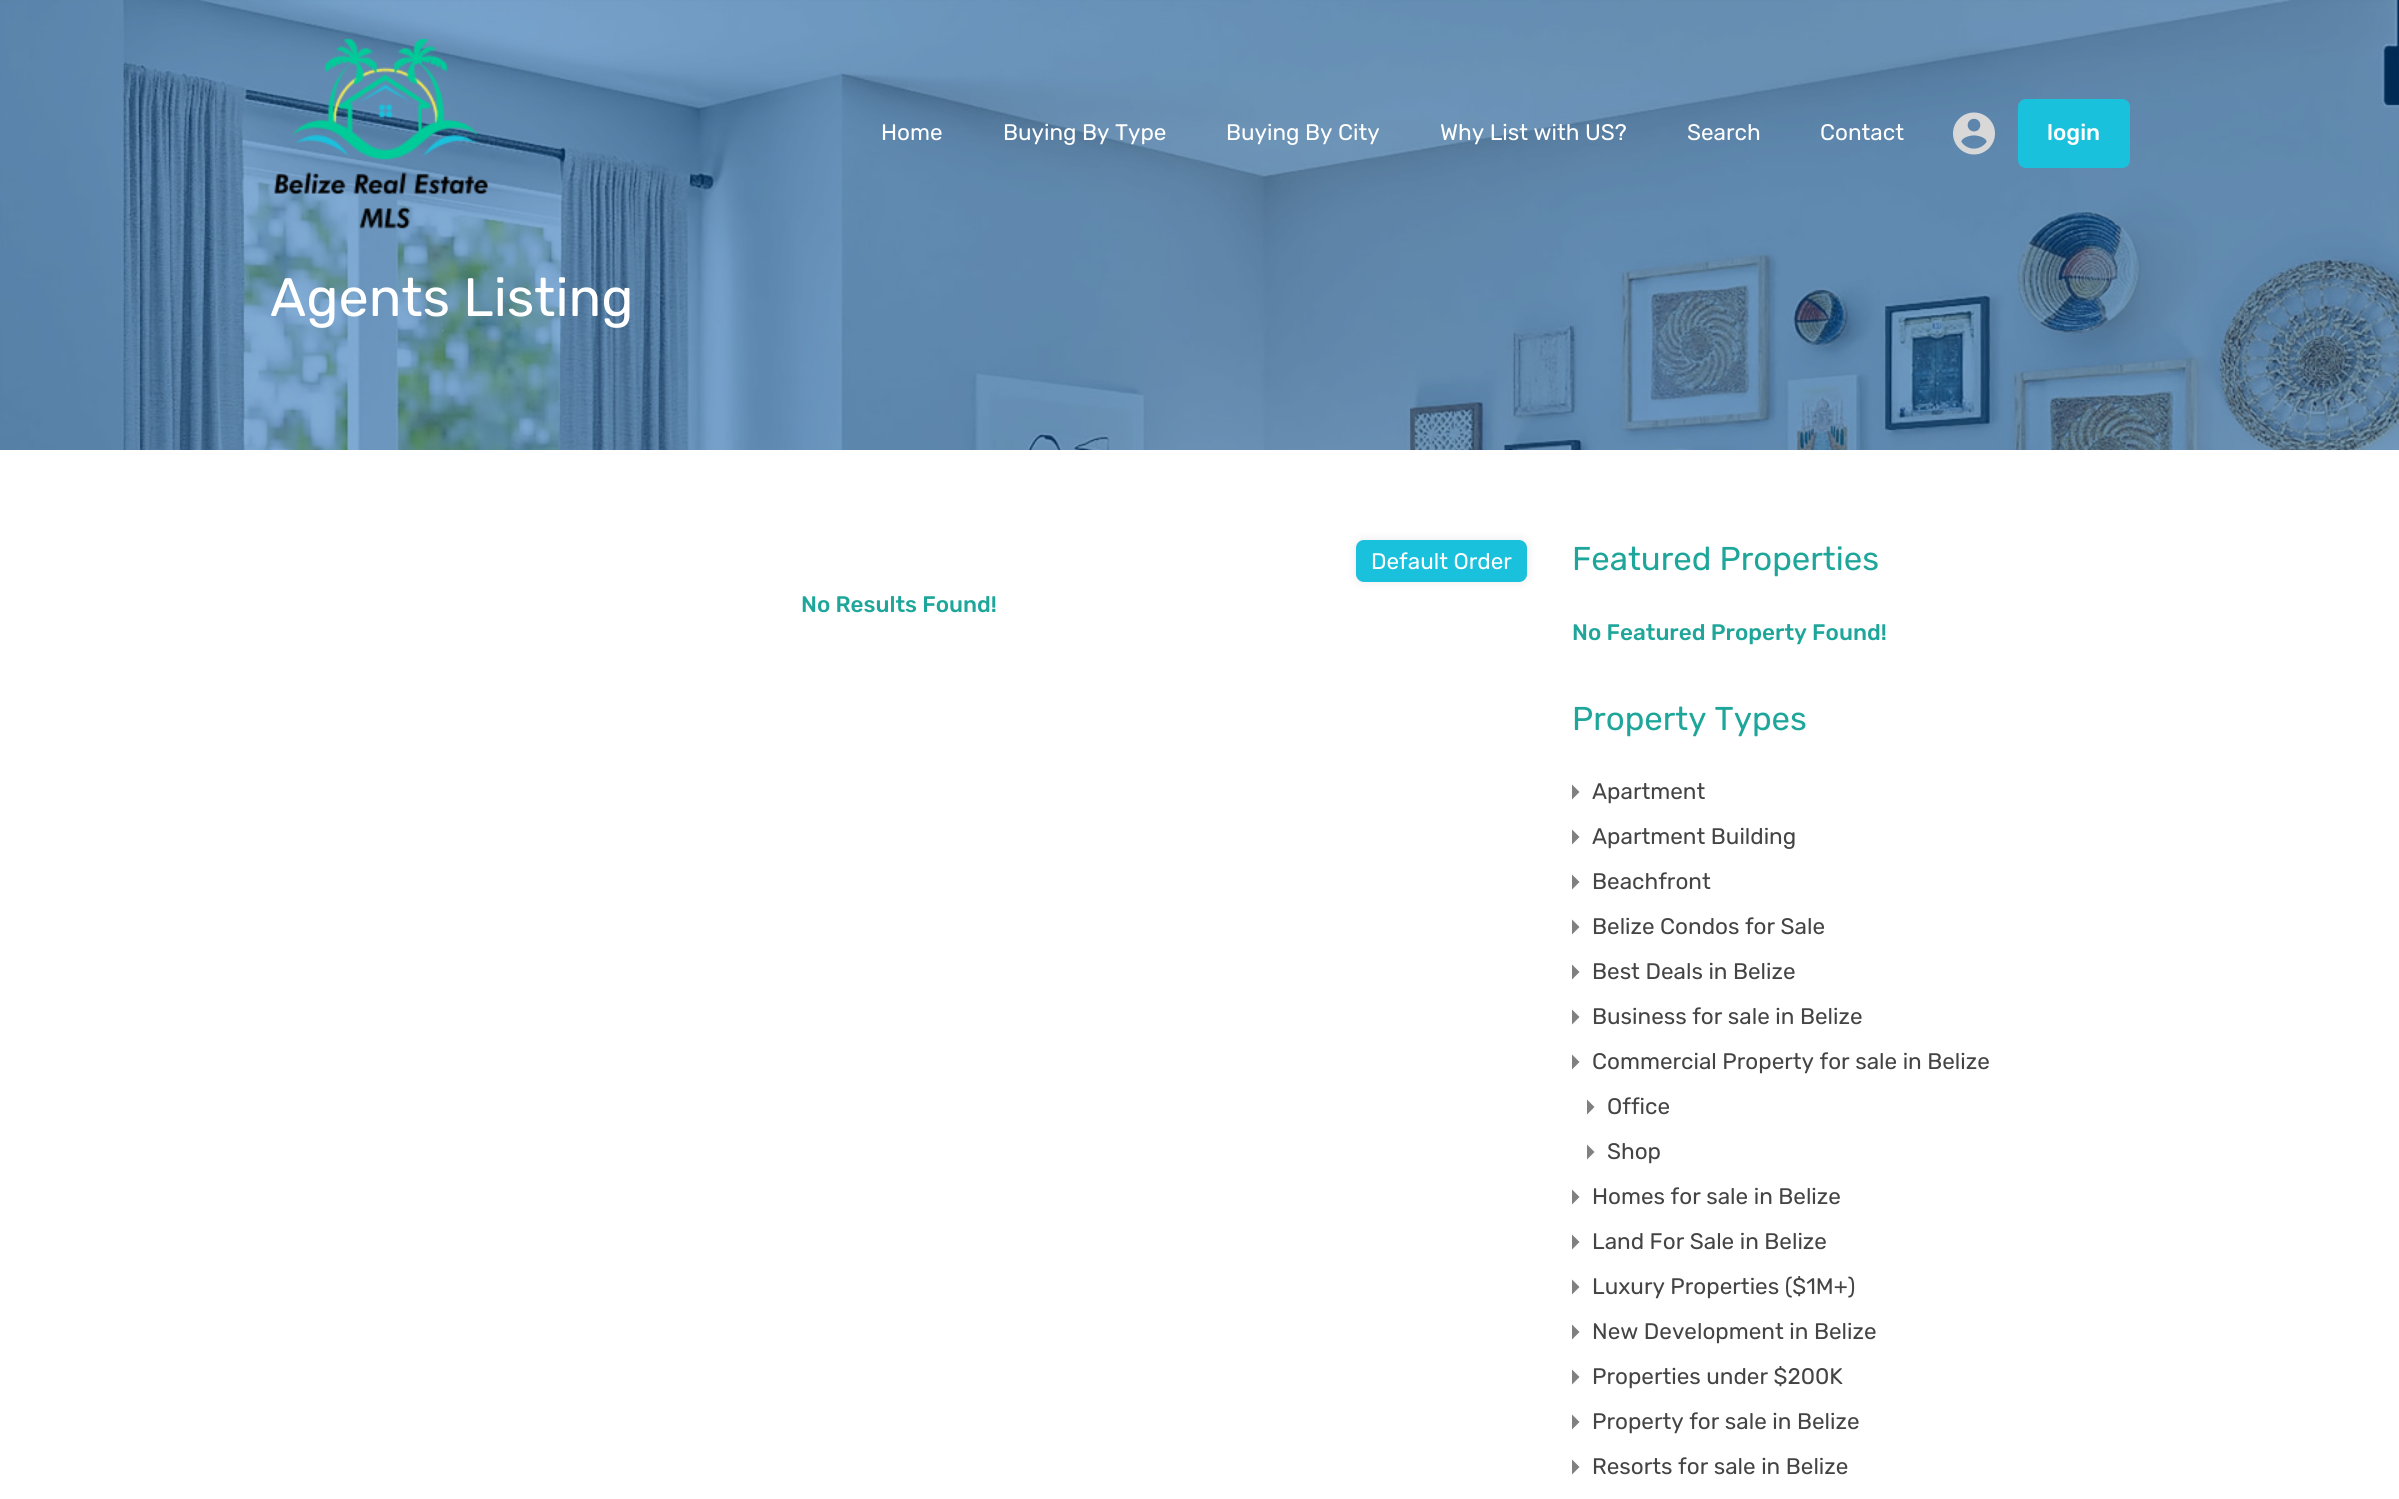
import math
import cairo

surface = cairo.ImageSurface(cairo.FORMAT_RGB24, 2399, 1499)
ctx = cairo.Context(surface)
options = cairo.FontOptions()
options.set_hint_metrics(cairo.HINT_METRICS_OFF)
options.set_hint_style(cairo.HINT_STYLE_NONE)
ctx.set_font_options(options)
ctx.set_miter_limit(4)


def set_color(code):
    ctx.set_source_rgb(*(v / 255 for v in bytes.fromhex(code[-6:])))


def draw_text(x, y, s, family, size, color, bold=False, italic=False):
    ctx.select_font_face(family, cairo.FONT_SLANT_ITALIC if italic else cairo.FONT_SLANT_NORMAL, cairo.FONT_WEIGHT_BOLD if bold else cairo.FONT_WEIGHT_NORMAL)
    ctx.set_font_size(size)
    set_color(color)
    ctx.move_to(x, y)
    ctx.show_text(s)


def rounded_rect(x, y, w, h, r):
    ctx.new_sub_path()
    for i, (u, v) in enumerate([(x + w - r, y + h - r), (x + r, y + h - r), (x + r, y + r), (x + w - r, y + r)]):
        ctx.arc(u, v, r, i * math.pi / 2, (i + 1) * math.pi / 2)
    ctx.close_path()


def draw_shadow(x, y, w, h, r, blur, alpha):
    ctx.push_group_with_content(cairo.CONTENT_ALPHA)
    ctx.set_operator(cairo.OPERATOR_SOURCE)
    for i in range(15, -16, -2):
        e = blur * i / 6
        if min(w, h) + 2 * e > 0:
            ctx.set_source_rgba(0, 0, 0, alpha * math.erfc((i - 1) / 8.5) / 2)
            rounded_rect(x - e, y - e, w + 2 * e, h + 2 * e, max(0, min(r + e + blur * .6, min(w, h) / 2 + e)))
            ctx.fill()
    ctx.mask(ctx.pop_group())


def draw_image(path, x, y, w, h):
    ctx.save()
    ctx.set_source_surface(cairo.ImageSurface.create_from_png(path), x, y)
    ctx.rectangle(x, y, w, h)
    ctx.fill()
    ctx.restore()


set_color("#ffffff")
ctx.paint()
draw_image("assets/img3.png", 0, 0, 2399, 450)
draw_image("assets/img1.png", 274, 38, 214, 191)
draw_text(881, 140, "Home", "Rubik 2 Light", 22.5, "#ffffff")
draw_text(1003, 140, "Buying By Type", "Rubik 2 Light", 22.5, "#ffffff")
draw_text(1226, 140, "Buying By City", "Rubik 2 Light", 22.5, "#ffffff")
draw_text(1440, 140, "Why List with US?", "Rubik 2 Light", 22.5, "#ffffff")
draw_text(1687, 140, "Search", "Rubik 2 Light", 22.5, "#ffffff")
draw_text(1820, 140, "Contact", "Rubik 2 Light", 22.5, "#ffffff")
draw_image("assets/img2.png", 1953, 112, 42, 43)
set_color("#1ac1dd")
rounded_rect(2018, 99, 112, 69, 8)
ctx.fill()
draw_text(2047, 140, "login", "Rubik Light", 22.5, "#ffffff")
draw_text(270, 316, "Agents Listing", "Rubik 2 Light", 54, "#ffffff")
set_color("#000000")
draw_shadow(1353, 537, 177, 48, 11, 4, 0.05)
set_color("#1ac1dd")
rounded_rect(1356, 540, 171, 42, 8)
ctx.fill()
draw_text(1371, 569, "Default Order", "Rubik 2 Light", 22.5, "#ffffff")
draw_text(801, 612, "No Results Found!", "Rubik Light", 22.5, "#1ea69a")
draw_text(1572, 570, "Featured Properties", "Rubik 2 Light", 33, "#1ea69a")
draw_text(1572, 640, "No Featured Property Found!", "Rubik Light", 22.5, "#1ea69a")
draw_text(1572, 730, "Property Types", "Rubik 2 Light", 33, "#1ea69a")
set_color("#808080")
ctx.new_path()
ctx.move_to(1572, 799.5)
ctx.line_to(1572, 784.5)
ctx.line_to(1579.5, 792)
ctx.close_path()
ctx.fill()
draw_text(1592, 799, "Apartment", "Rubik 2 Light", 22.5, "#444444")
set_color("#808080")
ctx.new_path()
ctx.move_to(1572, 844.5)
ctx.line_to(1572, 829.5)
ctx.line_to(1579.5, 837)
ctx.close_path()
ctx.fill()
draw_text(1592, 844, "Apartment Building", "Rubik 2 Light", 22.5, "#444444")
set_color("#808080")
ctx.new_path()
ctx.move_to(1572, 889.5)
ctx.line_to(1572, 874.5)
ctx.line_to(1579.5, 882)
ctx.close_path()
ctx.fill()
draw_text(1592, 889, "Beachfront", "Rubik 2 Light", 22.5, "#444444")
set_color("#808080")
ctx.new_path()
ctx.move_to(1572, 934.5)
ctx.line_to(1572, 919.5)
ctx.line_to(1579.5, 927)
ctx.close_path()
ctx.fill()
draw_text(1592, 934, "Belize Condos for Sale", "Rubik 2 Light", 22.5, "#444444")
set_color("#808080")
ctx.new_path()
ctx.move_to(1572, 979.5)
ctx.line_to(1572, 964.5)
ctx.line_to(1579.5, 972)
ctx.close_path()
ctx.fill()
draw_text(1592, 979, "Best Deals in Belize", "Rubik 2 Light", 22.5, "#444444")
set_color("#808080")
ctx.new_path()
ctx.move_to(1572, 1024.5)
ctx.line_to(1572, 1009.5)
ctx.line_to(1579.5, 1017)
ctx.close_path()
ctx.fill()
draw_text(1592, 1024, "Business for sale in Belize", "Rubik 2 Light", 22.5, "#444444")
set_color("#808080")
ctx.new_path()
ctx.move_to(1572, 1069.5)
ctx.line_to(1572, 1054.5)
ctx.line_to(1579.5, 1062)
ctx.close_path()
ctx.fill()
draw_text(1592, 1069, "Commercial Property for sale in Belize", "Rubik 2 Light", 22.5, "#444444")
set_color("#808080")
ctx.new_path()
ctx.move_to(1587, 1114.5)
ctx.line_to(1587, 1099.5)
ctx.line_to(1594.5, 1107)
ctx.close_path()
ctx.fill()
draw_text(1607, 1114, "Office", "Rubik 2 Light", 22.5, "#444444")
set_color("#808080")
ctx.new_path()
ctx.move_to(1587, 1159.5)
ctx.line_to(1587, 1144.5)
ctx.line_to(1594.5, 1152)
ctx.close_path()
ctx.fill()
draw_text(1607, 1159, "Shop", "Rubik 2 Light", 22.5, "#444444")
set_color("#808080")
ctx.new_path()
ctx.move_to(1572, 1204.5)
ctx.line_to(1572, 1189.5)
ctx.line_to(1579.5, 1197)
ctx.close_path()
ctx.fill()
draw_text(1592, 1204, "Homes for sale in Belize", "Rubik 2 Light", 22.5, "#444444")
set_color("#808080")
ctx.new_path()
ctx.move_to(1572, 1249.5)
ctx.line_to(1572, 1234.5)
ctx.line_to(1579.5, 1242)
ctx.close_path()
ctx.fill()
draw_text(1592, 1249, "Land For Sale in Belize", "Rubik 2 Light", 22.5, "#444444")
set_color("#808080")
ctx.new_path()
ctx.move_to(1572, 1294.5)
ctx.line_to(1572, 1279.5)
ctx.line_to(1579.5, 1287)
ctx.close_path()
ctx.fill()
draw_text(1592, 1294, "Luxury Properties ($1M+)", "Rubik 2 Light", 22.5, "#444444")
set_color("#808080")
ctx.new_path()
ctx.move_to(1572, 1339.5)
ctx.line_to(1572, 1324.5)
ctx.line_to(1579.5, 1332)
ctx.close_path()
ctx.fill()
draw_text(1592, 1339, "New Development in Belize", "Rubik 2 Light", 22.5, "#444444")
set_color("#808080")
ctx.new_path()
ctx.move_to(1572, 1384.5)
ctx.line_to(1572, 1369.5)
ctx.line_to(1579.5, 1377)
ctx.close_path()
ctx.fill()
draw_text(1592, 1384, "Properties under $200K", "Rubik 2 Light", 22.5, "#444444")
set_color("#808080")
ctx.new_path()
ctx.move_to(1572, 1429.5)
ctx.line_to(1572, 1414.5)
ctx.line_to(1579.5, 1422)
ctx.close_path()
ctx.fill()
draw_text(1592, 1429, "Property for sale in Belize", "Rubik 2 Light", 22.5, "#444444")
set_color("#808080")
ctx.new_path()
ctx.move_to(1572, 1474.5)
ctx.line_to(1572, 1459.5)
ctx.line_to(1579.5, 1467)
ctx.close_path()
ctx.fill()
draw_text(1592, 1474, "Resorts for sale in Belize", "Rubik 2 Light", 22.5, "#444444")
surface.write_to_png("output.png")
